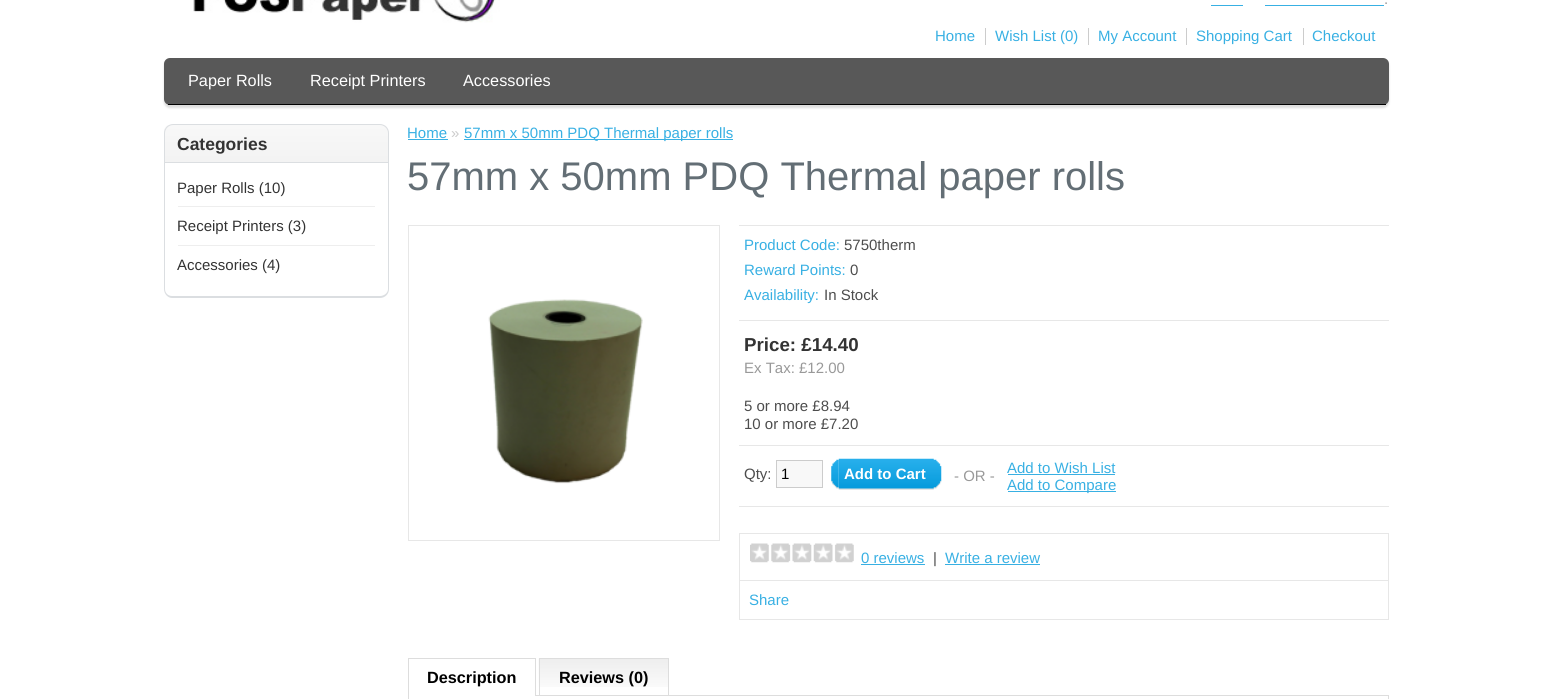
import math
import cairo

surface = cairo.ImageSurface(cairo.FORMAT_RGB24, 1551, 699)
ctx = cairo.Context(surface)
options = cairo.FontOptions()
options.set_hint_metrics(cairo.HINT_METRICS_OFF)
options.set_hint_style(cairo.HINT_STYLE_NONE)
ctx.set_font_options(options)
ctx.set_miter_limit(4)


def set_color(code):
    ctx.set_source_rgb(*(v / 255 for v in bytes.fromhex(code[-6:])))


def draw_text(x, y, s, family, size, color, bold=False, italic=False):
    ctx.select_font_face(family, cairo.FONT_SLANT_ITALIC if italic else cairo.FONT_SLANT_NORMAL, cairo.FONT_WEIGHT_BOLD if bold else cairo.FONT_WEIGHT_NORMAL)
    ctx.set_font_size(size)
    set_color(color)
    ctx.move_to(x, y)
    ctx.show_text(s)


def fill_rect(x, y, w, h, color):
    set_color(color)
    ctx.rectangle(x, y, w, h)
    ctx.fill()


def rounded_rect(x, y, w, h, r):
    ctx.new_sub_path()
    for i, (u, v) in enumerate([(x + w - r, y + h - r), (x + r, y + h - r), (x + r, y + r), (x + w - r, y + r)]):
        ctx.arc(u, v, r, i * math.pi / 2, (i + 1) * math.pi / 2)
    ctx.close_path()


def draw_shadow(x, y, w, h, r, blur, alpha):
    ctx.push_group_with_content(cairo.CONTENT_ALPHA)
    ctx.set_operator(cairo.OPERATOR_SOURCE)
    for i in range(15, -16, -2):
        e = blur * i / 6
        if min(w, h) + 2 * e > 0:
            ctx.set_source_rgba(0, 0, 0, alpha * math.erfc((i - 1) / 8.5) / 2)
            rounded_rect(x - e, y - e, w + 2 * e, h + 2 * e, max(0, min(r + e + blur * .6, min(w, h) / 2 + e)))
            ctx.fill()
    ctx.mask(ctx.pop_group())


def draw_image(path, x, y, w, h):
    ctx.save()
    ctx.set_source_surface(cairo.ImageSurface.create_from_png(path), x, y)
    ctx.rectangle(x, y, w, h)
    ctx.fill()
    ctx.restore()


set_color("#ffffff")
ctx.paint()
draw_image("assets/img1.png", 193, 0, 307, 23)
draw_text(1384, 4, ".", "Liberation Sans", 15, "#999999")
fill_rect(1211, 5, 32, 1, "#38b0e3")
fill_rect(1265, 5, 119, 1, "#38b0e3")
draw_text(935, 41, "Home", "Liberation Sans", 15, "#38b0e3")
fill_rect(985, 28, 1, 17, "#cccccc")
draw_text(995, 41, "Wish List (0)", "Liberation Sans", 15, "#38b0e3")
fill_rect(1088, 28, 1, 17, "#cccccc")
draw_text(1098, 41, "My Account", "Liberation Sans", 15, "#38b0e3")
fill_rect(1186, 28, 1, 17, "#cccccc")
draw_text(1196, 41, "Shopping Cart", "Liberation Sans", 15, "#38b0e3")
fill_rect(1303, 28, 1, 17, "#cccccc")
draw_text(1312, 41, "Checkout", "Liberation Sans", 15, "#38b0e3")
set_color("#dddddd")
draw_shadow(164, 60, 1225, 48, 6, 1, 1)
set_color("#585858")
rounded_rect(164, 58, 1225, 47, 6)
ctx.fill()
fill_rect(168, 104, 1218, 1, "#000000")
draw_text(188, 86, "Paper Rolls", "Liberation Sans", 16.25, "#ffffff")
draw_text(310, 86, "Receipt Printers", "Liberation Sans", 16.25, "#ffffff")
draw_text(463, 86, "Accessories", "Liberation Sans", 16.25, "#ffffff")
draw_image("assets/img2.png", 164, 125, 225, 37)
ctx.new_path()
ctx.move_to(173, 124.5)
ctx.line_to(380, 124.5)
ctx.curve_to(384.5, 124.5, 388.5, 128.5, 388.5, 133)
ctx.line_to(388.5, 162.5)
ctx.line_to(164.5, 162.5)
ctx.line_to(164.5, 133)
ctx.curve_to(164.5, 128.5, 168.5, 124.5, 173, 124.5)
ctx.close_path()
set_color("#dbdee1")
ctx.set_line_width(1)
ctx.stroke()
draw_text(177, 150, "Categories", "Liberation Sans", 17.5, "#333333", bold=True)
set_color("#dbdee1")
ctx.set_fill_rule(cairo.FILL_RULE_EVEN_ODD)
ctx.new_path()
ctx.move_to(164, 162)
ctx.line_to(389, 162)
ctx.line_to(389, 289)
ctx.curve_to(389, 294, 385, 298, 380, 298)
ctx.line_to(172, 298)
ctx.curve_to(168, 298, 164, 294, 164, 289)
ctx.close_path()
ctx.move_to(165, 162)
ctx.line_to(388, 162)
ctx.line_to(388, 289)
ctx.curve_to(388, 293, 384, 296, 380, 296)
ctx.line_to(172, 296)
ctx.curve_to(168, 296, 165, 293, 165, 289)
ctx.close_path()
ctx.fill()
draw_text(177, 193, "Paper Rolls (10)", "Liberation Sans", 15, "#333333")
fill_rect(178, 206, 197, 1, "#eeeeee")
draw_text(177, 231, "Receipt Printers (3)", "Liberation Sans", 15, "#333333")
fill_rect(178, 245, 197, 1, "#eeeeee")
draw_text(177, 270, "Accessories (4)", "Liberation Sans", 15, "#333333")
draw_text(407, 138, "Home", "Liberation Sans", 15, "#38b0e3")
fill_rect(408, 139, 40, 1, "#38b0e3")
draw_text(451, 138, "»", "Liberation Sans", 15, "#cccccc")
fill_rect(464, 139, 269, 1, "#38b0e3")
draw_text(464, 138, "57mm x 50mm PDQ Thermal paper rolls", "Liberation Sans", 15, "#38b0e3")
draw_text(407, 190, "57mm x 50mm PDQ Thermal paper rolls", "Liberation Sans", 40, "#636e75")
ctx.rectangle(408.5, 225.5, 311, 315)
set_color("#e7e7e7")
ctx.stroke()
draw_image("assets/img3.png", 488, 299, 155, 185)
fill_rect(739, 225, 650, 1, "#e7e7e7")
fill_rect(739, 320, 650, 1, "#e7e7e7")
draw_text(744, 250, "Product Code:", "Liberation Sans", 15, "#38b0e3")
draw_text(844, 250, "5750therm", "Liberation Sans", 15, "#4d4d4d")
draw_text(744, 275, "Reward Points:", "Liberation Sans", 15, "#38b0e3")
draw_text(850, 275, "0", "Liberation Sans", 15, "#4d4d4d")
draw_text(744, 300, "Availability:", "Liberation Sans", 15, "#38b0e3")
draw_text(824, 300, "In Stock", "Liberation Sans", 15, "#4d4d4d")
fill_rect(739, 445, 650, 1, "#e7e7e7")
draw_text(744, 351, "Price: £14.40", "Liberation Sans", 18.75, "#333333", bold=True)
draw_text(744, 373, "Ex Tax: £12.00", "Liberation Sans", 15, "#999999")
draw_text(744, 411, "5 or more £8.94", "Liberation Sans", 15, "#4d4d4d")
draw_text(744, 429, "10 or more £7.20", "Liberation Sans", 15, "#4d4d4d")
fill_rect(739, 506, 650, 1, "#e7e7e7")
draw_text(744, 479, "Qty:", "Liberation Sans", 15, "#4d4d4d")
set_color("#f8f8f8")
ctx.rectangle(776.5, 460.5, 46, 27)
ctx.fill_preserve()
set_color("#cccccc")
ctx.stroke()
draw_text(781, 479, "1", "Liberation Sans", 15, "#000000")
draw_image("assets/img4.png", 831, 459, 8, 30)
draw_image("assets/img5.png", 838, 458, 104, 32)
draw_text(844, 479, "Add to Cart", "Liberation Sans", 15, "#ffffff", bold=True)
draw_text(954, 481, "- OR -", "Liberation Sans", 15, "#999999")
draw_text(1007, 473, "Add to Wish List", "Liberation Sans", 15, "#38b0e3")
fill_rect(1008, 474, 107, 1, "#38b0e3")
fill_rect(1008, 491, 108, 1, "#38b0e3")
draw_text(1007, 490, "Add to Compare", "Liberation Sans", 15, "#38b0e3")
fill_rect(739, 533, 650, 1, "#e7e7e7")
fill_rect(1388, 533, 1, 87, "#e7e7e7")
fill_rect(739, 533, 1, 87, "#e7e7e7")
fill_rect(740, 580, 648, 1, "#e7e7e7")
draw_image("assets/img6.png", 750, 543, 104, 20)
draw_text(861, 563, "0 reviews", "Liberation Sans", 15, "#38b0e3")
fill_rect(861, 564, 64, 1, "#38b0e3")
draw_text(933, 563, "|", "Liberation Sans", 15, "#4d4d4d")
draw_text(945, 563, "Write a review", "Liberation Sans", 15, "#38b0e3")
fill_rect(945, 564, 95, 1, "#38b0e3")
fill_rect(740, 619, 648, 1, "#e7e7e7")
draw_text(749, 605, "Share", "Liberation Sans", 15, "#38b0e3")
fill_rect(536, 695, 853, 1, "#dddddd")
fill_rect(408, 658, 128, 1, "#dddddd")
fill_rect(535, 658, 1, 38, "#dddddd")
fill_rect(408, 658, 1, 41, "#dddddd")
draw_text(427, 683, "Description", "Liberation Sans", 16.25, "#000000", bold=True)
draw_image("assets/img7.png", 538, 658, 130, 29)
fill_rect(539, 658, 130, 1, "#dddddd")
fill_rect(668, 658, 1, 37, "#dddddd")
fill_rect(539, 658, 1, 37, "#dddddd")
draw_text(559, 683, "Reviews (0)", "Liberation Sans", 16.25, "#000000", bold=True)
fill_rect(1388, 696, 1, 3, "#dddddd")
surface.write_to_png("output.png")
